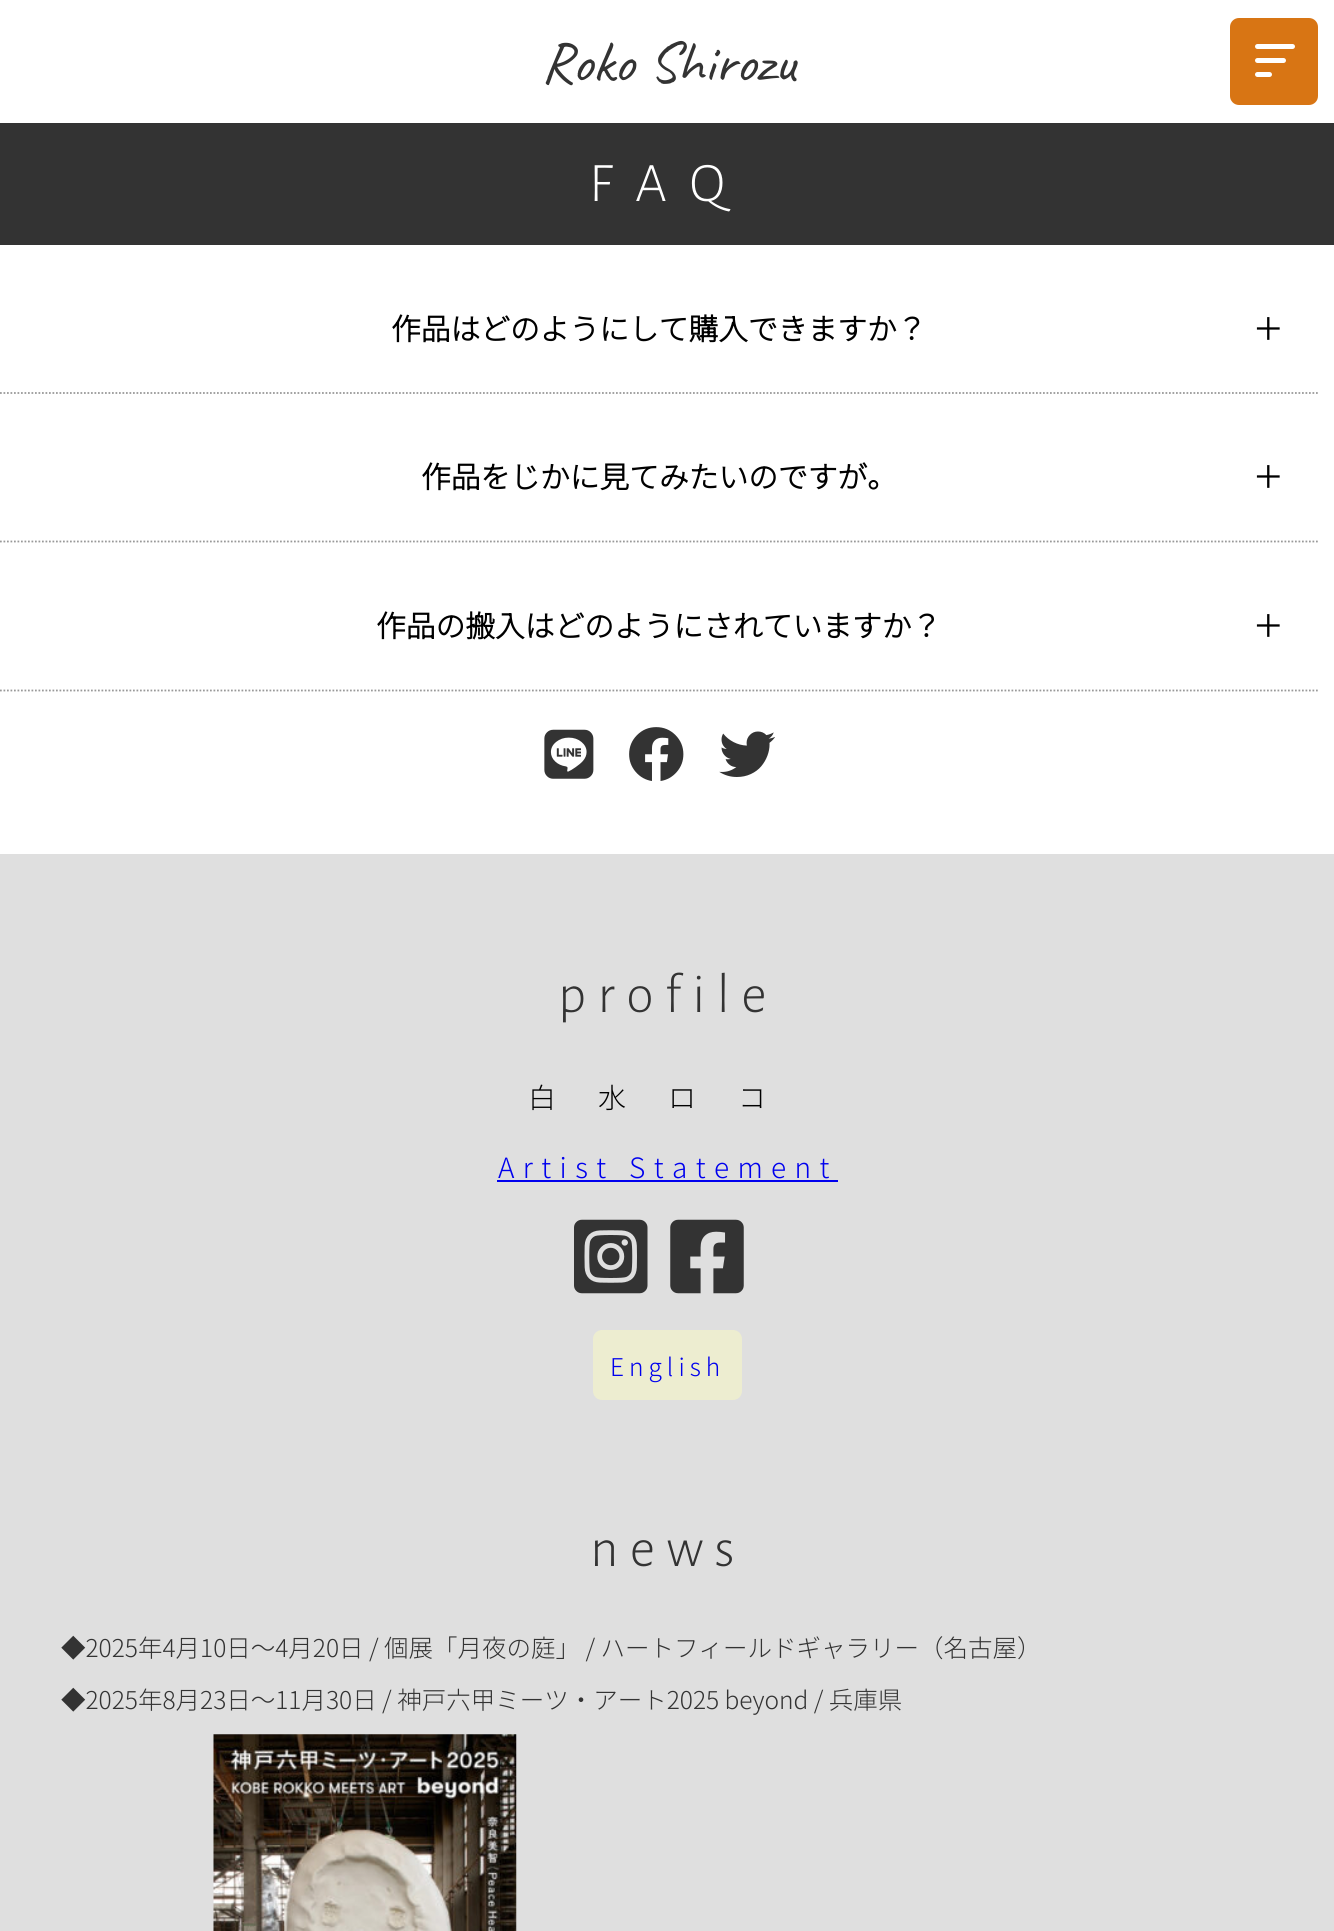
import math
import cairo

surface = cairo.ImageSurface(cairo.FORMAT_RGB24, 1334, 1931)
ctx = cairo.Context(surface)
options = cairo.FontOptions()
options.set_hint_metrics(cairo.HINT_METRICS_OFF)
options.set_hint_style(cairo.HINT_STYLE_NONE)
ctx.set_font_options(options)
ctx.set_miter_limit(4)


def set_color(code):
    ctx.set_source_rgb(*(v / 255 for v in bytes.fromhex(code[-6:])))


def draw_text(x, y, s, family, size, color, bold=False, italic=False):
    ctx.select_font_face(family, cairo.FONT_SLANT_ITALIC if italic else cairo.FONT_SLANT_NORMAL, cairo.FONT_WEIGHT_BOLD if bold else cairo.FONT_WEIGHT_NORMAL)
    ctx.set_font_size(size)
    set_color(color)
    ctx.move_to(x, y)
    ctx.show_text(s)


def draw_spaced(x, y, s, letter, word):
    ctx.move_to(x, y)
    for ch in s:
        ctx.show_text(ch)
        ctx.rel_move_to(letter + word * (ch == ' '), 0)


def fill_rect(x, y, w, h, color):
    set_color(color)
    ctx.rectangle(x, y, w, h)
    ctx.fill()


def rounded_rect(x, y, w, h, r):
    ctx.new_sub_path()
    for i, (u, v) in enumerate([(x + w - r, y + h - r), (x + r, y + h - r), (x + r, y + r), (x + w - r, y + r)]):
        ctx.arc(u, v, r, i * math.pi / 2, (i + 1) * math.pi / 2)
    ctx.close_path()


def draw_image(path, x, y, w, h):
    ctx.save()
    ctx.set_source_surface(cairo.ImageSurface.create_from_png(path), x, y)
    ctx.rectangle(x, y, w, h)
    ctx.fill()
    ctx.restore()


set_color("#ffffff")
ctx.paint()
ctx.select_font_face("Caveat")
ctx.set_font_size(57.75)
set_color("#333333")
draw_spaced(541, 81, "Roko Shirozu", 0, 1)
set_color("#d87514")
rounded_rect(1230, 18, 88, 87, 9)
ctx.fill()
set_color("#ffffff")
rounded_rect(1255, 44, 40, 5, 2.5)
ctx.fill()
rounded_rect(1255, 58, 31, 5, 2.5)
ctx.fill()
rounded_rect(1255, 72, 17, 5, 2.5)
ctx.fill()
fill_rect(0, 123, 1334, 122, "#333333")
ctx.select_font_face("Alegreya Sans Light")
ctx.set_font_size(56)
set_color("#ffffff")
draw_spaced(589, 201, "FAQ", 22.5, 0)
ctx.new_path()
ctx.move_to(0, 393)
ctx.line_to(1318, 393)
set_color("#999999")
ctx.set_line_width(1.8)
ctx.set_dash([1.75, 1.75])
ctx.stroke()
draw_text(391, 340, "作品はどのようにして購入できますか？", "Noto Sans JP", 29.75, "#000000", bold=True)
draw_text(1253, 340, "＋", "Noto Sans JP", 29.75, "#000000", bold=True)
ctx.new_path()
ctx.move_to(0, 541.5)
ctx.line_to(1318, 541.5)
set_color("#999999")
ctx.stroke()
draw_text(421, 488, "作品をじかに見てみたいのですが。", "Noto Sans JP", 29.75, "#000000", bold=True)
draw_text(1253, 488, "＋", "Noto Sans JP", 29.75, "#000000", bold=True)
ctx.new_path()
ctx.move_to(0, 690.5)
ctx.line_to(1318, 690.5)
set_color("#999999")
ctx.stroke()
draw_text(376, 637, "作品の搬入はどのようにされていますか？", "Noto Sans JP", 29.75, "#000000", bold=True)
draw_text(1253, 637, "＋", "Noto Sans JP", 29.75, "#000000", bold=True)
draw_image("assets/img1.png", 544, 729, 50, 50)
draw_image("assets/img2.png", 629, 727, 55, 54)
draw_image("assets/img3.png", 719, 731, 56, 46)
fill_rect(0, 854, 1334, 1077, "#dfdfdf")
ctx.select_font_face("Alegreya Sans Light")
ctx.set_font_size(56)
set_color("#333333")
draw_spaced(558, 1012, "profile", 11.25, 0)
ctx.select_font_face("Noto Sans JP Thin")
ctx.set_font_size(28)
set_color("#000000")
draw_spaced(528, 1108, "白水ロコ", 42, 0)
set_color("#0000ee")
draw_spaced(498, 1178, "Artist Statement", 8.4, 0)
fill_rect(497, 1180, 341, 2, "#0000ee")
draw_image("assets/img4.png", 574, 1219, 74, 75)
draw_image("assets/img5.png", 670, 1219, 74, 75)
set_color("#ededd0")
rounded_rect(593, 1330, 149, 70, 9)
ctx.fill()
ctx.set_font_size(24.5)
set_color("#0000ee")
draw_spaced(610, 1376, "English", 5, 0)
ctx.select_font_face("Alegreya Sans Light")
ctx.set_font_size(56)
set_color("#333333")
draw_spaced(590, 1566, "news", 11.25, 0)
draw_text(61, 1657, "◆2025年4月10日～4月20日 / 個展「月夜の庭」 / ハートフィールドギャラリー（名古屋）", "Noto Sans JP Thin", 24.5, "#333333")
draw_text(61, 1709, "◆2025年8月23日～11月30日 / 神戸六甲ミーツ・アート2025 beyond / 兵庫県", "Noto Sans JP Thin", 24.5, "#333333")
draw_image("assets/img6.png", 213, 1734, 304, 197)
surface.write_to_png("output.png")
